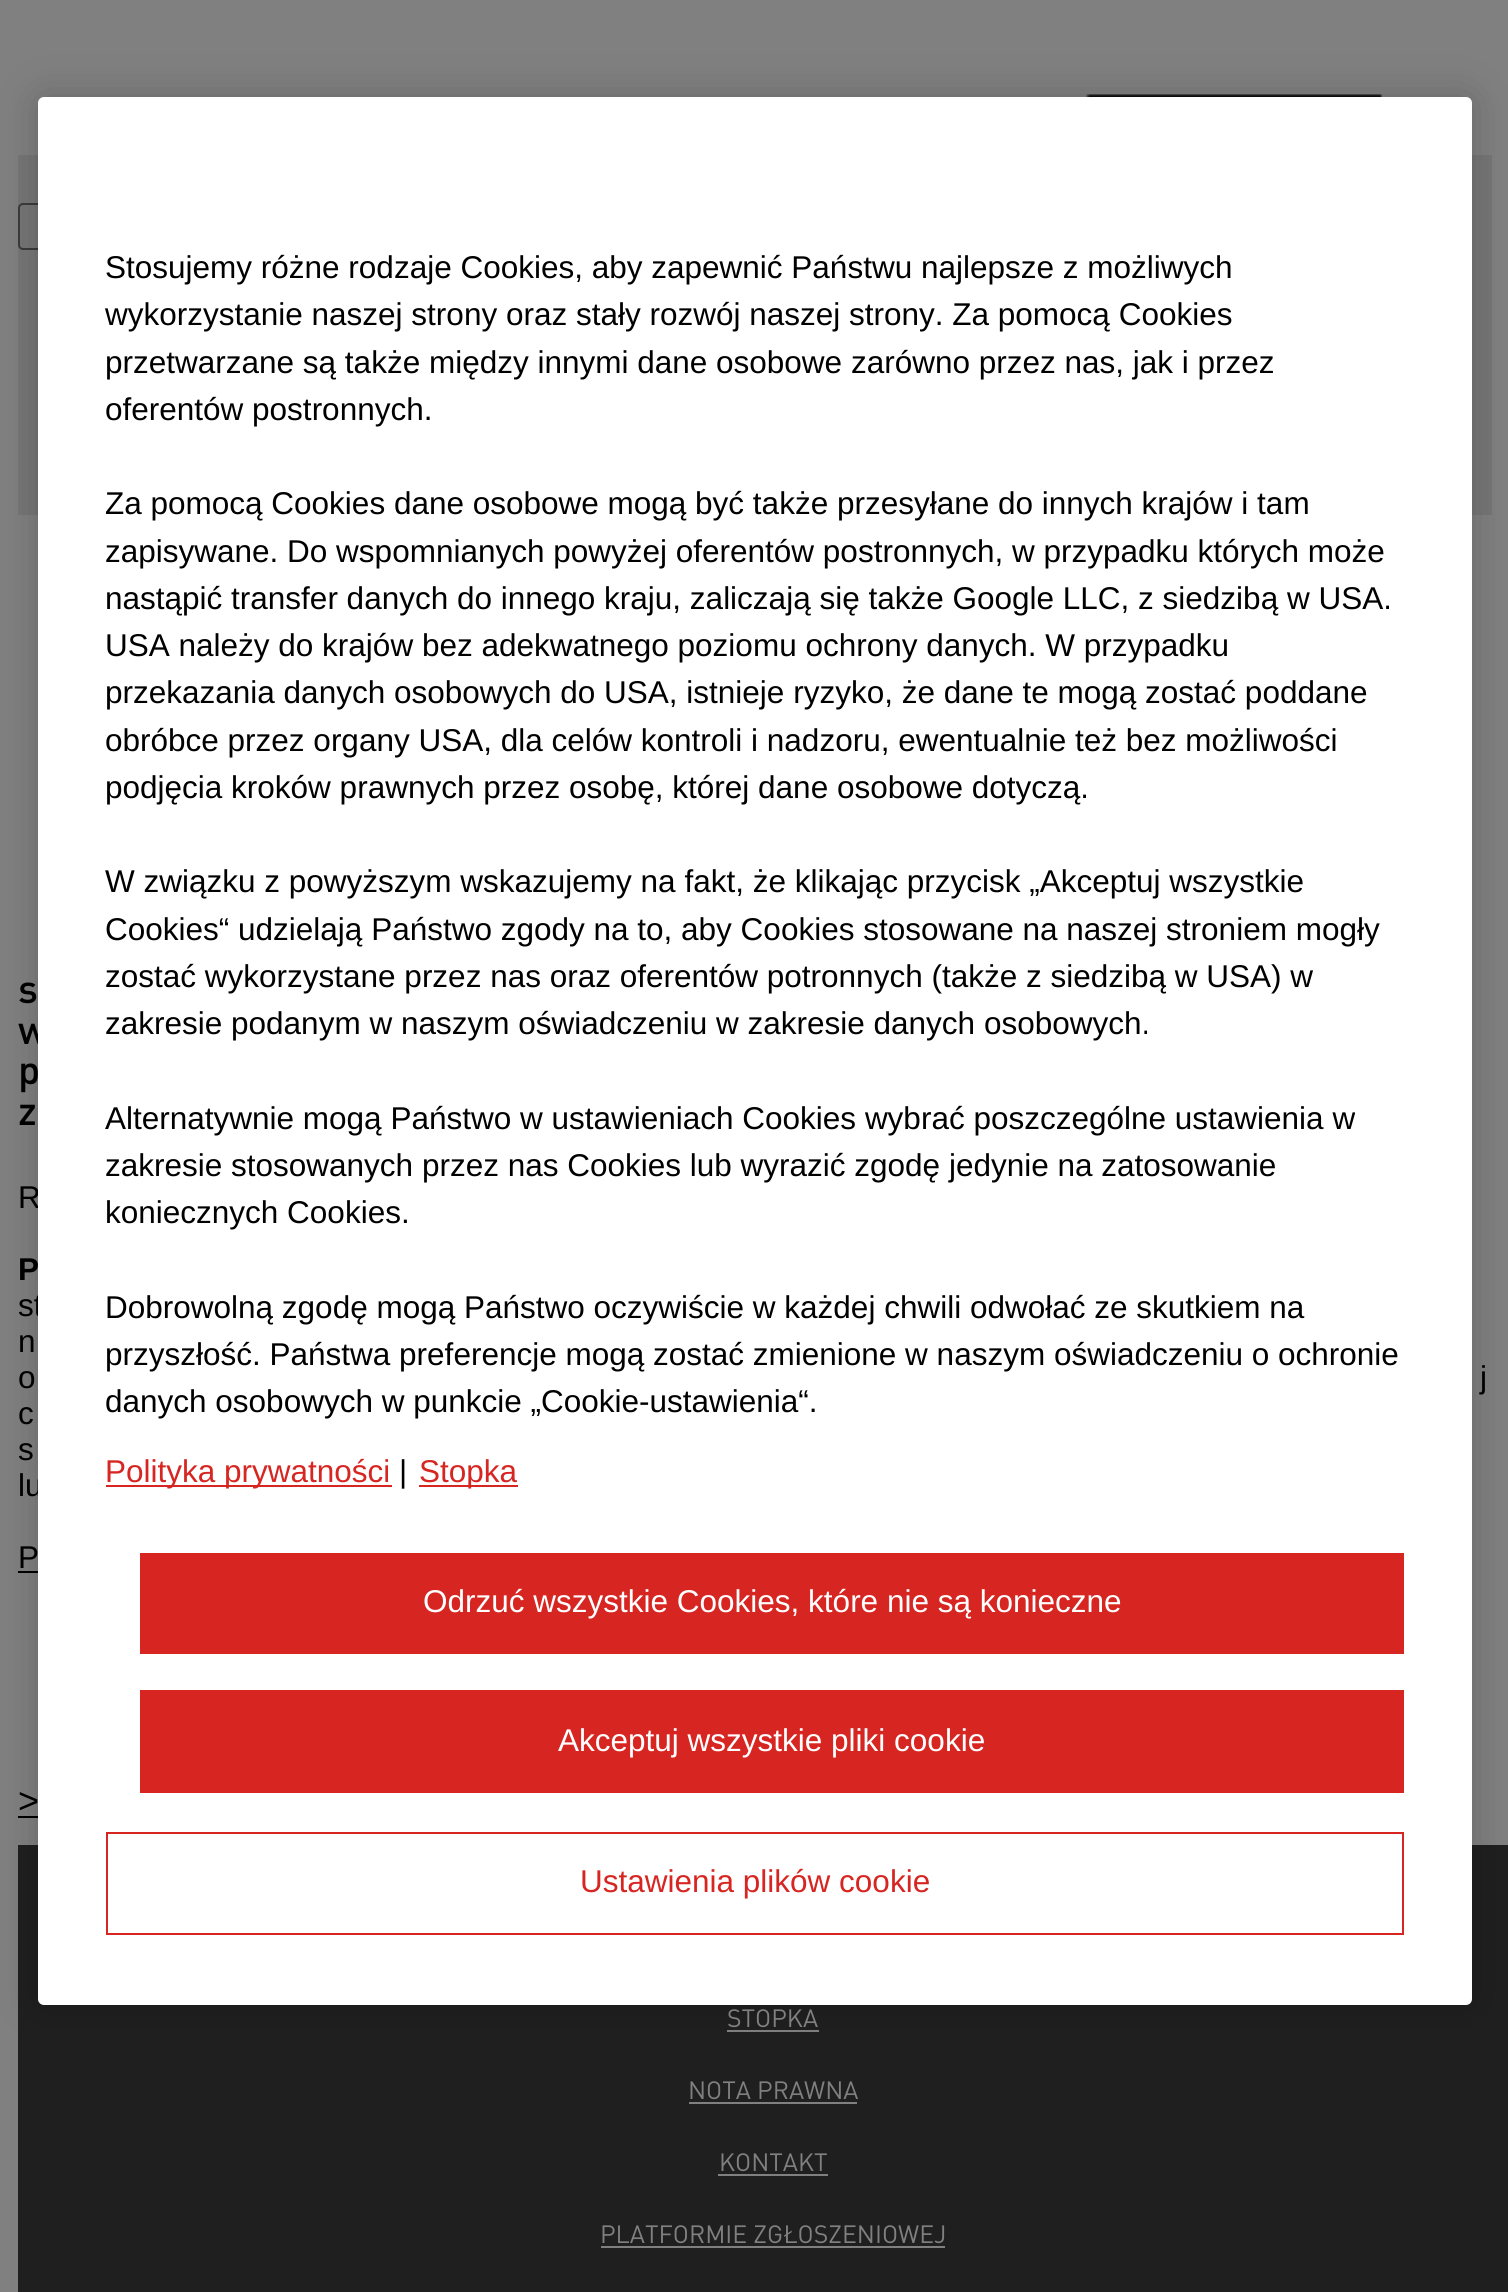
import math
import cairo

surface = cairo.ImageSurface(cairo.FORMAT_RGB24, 1508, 2292)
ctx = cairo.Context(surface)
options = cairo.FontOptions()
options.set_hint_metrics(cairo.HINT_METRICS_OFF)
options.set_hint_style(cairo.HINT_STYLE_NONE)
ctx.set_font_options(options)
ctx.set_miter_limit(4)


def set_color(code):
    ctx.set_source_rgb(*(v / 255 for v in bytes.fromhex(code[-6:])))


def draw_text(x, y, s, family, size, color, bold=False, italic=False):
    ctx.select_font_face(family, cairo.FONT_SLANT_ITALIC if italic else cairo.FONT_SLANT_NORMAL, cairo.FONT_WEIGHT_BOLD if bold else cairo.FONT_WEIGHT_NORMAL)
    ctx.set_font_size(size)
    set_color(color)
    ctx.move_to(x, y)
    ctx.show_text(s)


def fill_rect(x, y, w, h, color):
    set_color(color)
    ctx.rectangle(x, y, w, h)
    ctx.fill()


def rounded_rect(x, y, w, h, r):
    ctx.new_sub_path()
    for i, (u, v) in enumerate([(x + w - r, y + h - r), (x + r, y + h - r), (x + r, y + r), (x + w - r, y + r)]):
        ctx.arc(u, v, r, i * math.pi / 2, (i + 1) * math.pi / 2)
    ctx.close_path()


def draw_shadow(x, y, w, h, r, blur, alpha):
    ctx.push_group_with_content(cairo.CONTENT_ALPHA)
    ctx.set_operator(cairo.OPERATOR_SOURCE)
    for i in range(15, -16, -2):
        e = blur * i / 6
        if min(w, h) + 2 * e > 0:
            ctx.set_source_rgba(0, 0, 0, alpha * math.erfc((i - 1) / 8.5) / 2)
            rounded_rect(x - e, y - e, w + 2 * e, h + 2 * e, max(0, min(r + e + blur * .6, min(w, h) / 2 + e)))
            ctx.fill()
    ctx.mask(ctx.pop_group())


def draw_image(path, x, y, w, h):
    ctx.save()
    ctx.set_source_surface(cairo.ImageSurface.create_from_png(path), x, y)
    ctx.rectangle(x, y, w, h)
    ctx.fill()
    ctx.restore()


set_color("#808080")
ctx.paint()
draw_image("assets/img1.png", 1071, 94, 327, 3)
fill_rect(18, 155, 1474, 360, "#767676")
rounded_rect(19, 204, 95, 45, 4)
set_color("#3b3b3b")
ctx.stroke()
fill_rect(18, 1571, 20, 2, "#000000")
fill_rect(18, 1816, 20, 2, "#000000")
fill_rect(18, 1845, 1490, 447, "#1f1f1f")
fill_rect(727, 2030, 92, 2, "#808080")
set_color("#000000")
draw_shadow(38, 97, 1434, 1908, 6, 20, 0.2)
draw_text(18, 1044, "w", "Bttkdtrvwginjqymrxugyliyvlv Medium", 40, "#000000")
draw_text(18, 1084, "p", "Bttkdtrvwginjqymrxugyliyvlv Medium", 40, "#000000")
draw_text(18, 1208, "R", "Liberation Sans", 31.5, "#000000")
draw_text(18, 1316, "st", "Liberation Sans", 31.5, "#000000")
draw_text(18, 1496, "lu", "Liberation Sans", 31.5, "#000000")
set_color("#ffffff")
rounded_rect(38, 97, 1434, 1908, 6)
ctx.fill()
draw_text(105, 278, "Stosujemy różne rodzaje Cookies, aby zapewnić Państwu najlepsze z możliwych", "Liberation Sans", 31.5, "#000000")
draw_text(105, 325, "wykorzystanie naszej strony oraz stały rozwój naszej strony. Za pomocą Cookies", "Liberation Sans", 31.5, "#000000")
draw_text(105, 373, "przetwarzane są także między innymi dane osobowe zarówno przez nas, jak i przez", "Liberation Sans", 31.5, "#000000")
draw_text(105, 420, "oferentów postronnych.", "Liberation Sans", 31.5, "#000000")
draw_text(105, 514, "Za pomocą Cookies dane osobowe mogą być także przesyłane do innych krajów i tam", "Liberation Sans", 31.5, "#000000")
draw_text(105, 562, "zapisywane. Do wspomnianych powyżej oferentów postronnych, w przypadku których może", "Liberation Sans", 31.5, "#000000")
draw_text(105, 609, "nastąpić transfer danych do innego kraju, zaliczają się także Google LLC, z siedzibą w USA.", "Liberation Sans", 31.5, "#000000")
draw_text(105, 656, "USA należy do krajów bez adekwatnego poziomu ochrony danych. W przypadku", "Liberation Sans", 31.5, "#000000")
draw_text(105, 703, "przekazania danych osobowych do USA, istnieje ryzyko, że dane te mogą zostać poddane", "Liberation Sans", 31.5, "#000000")
draw_text(105, 751, "obróbce przez organy USA, dla celów kontroli i nadzoru, ewentualnie też bez możliwości", "Liberation Sans", 31.5, "#000000")
draw_text(105, 798, "podjęcia kroków prawnych przez osobę, której dane osobowe dotyczą.", "Liberation Sans", 31.5, "#000000")
draw_text(105, 892, "W związku z powyższym wskazujemy na fakt, że klikając przycisk „Akceptuj wszystkie", "Liberation Sans", 31.5, "#000000")
draw_text(105, 940, "Cookies“ udzielają Państwo zgody na to, aby Cookies stosowane na naszej stroniem mogły", "Liberation Sans", 31.5, "#000000")
draw_text(105, 987, "zostać wykorzystane przez nas oraz oferentów potronnych (także z siedzibą w USA) w", "Liberation Sans", 31.5, "#000000")
draw_text(105, 1034, "zakresie podanym w naszym oświadczeniu w zakresie danych osobowych.", "Liberation Sans", 31.5, "#000000")
draw_text(105, 1129, "Alternatywnie mogą Państwo w ustawieniach Cookies wybrać poszczególne ustawienia w", "Liberation Sans", 31.5, "#000000")
draw_text(105, 1176, "zakresie stosowanych przez nas Cookies lub wyrazić zgodę jedynie na zatosowanie", "Liberation Sans", 31.5, "#000000")
draw_text(105, 1223, "koniecznych Cookies.", "Liberation Sans", 31.5, "#000000")
draw_text(105, 1318, "Dobrowolną zgodę mogą Państwo oczywiście w każdej chwili odwołać ze skutkiem na", "Liberation Sans", 31.5, "#000000")
draw_text(105, 1365, "przyszłość. Państwa preferencje mogą zostać zmienione w naszym oświadczeniu o ochronie", "Liberation Sans", 31.5, "#000000")
draw_text(105, 1412, "danych osobowych w punkcie „Cookie-ustawienia“.", "Liberation Sans", 31.5, "#000000")
fill_rect(106, 1485, 286, 2, "#d72622")
draw_text(105, 1482, "Polityka prywatności", "Liberation Sans", 31.5, "#d72622")
draw_text(399, 1482, "|", "Liberation Sans", 31.5, "#000000")
fill_rect(419, 1485, 99, 2, "#d72622")
draw_text(419, 1482, "Stopka", "Liberation Sans", 31.5, "#d72622")
fill_rect(140, 1553, 1264, 101, "#d72622")
draw_text(423, 1612, "Odrzuć wszystkie Cookies, które nie są konieczne", "Liberation Sans", 31.5, "#ffffff")
fill_rect(140, 1690, 1264, 103, "#d72622")
draw_text(558, 1751, "Akceptuj wszystkie pliki cookie", "Liberation Sans", 31.5, "#ffffff")
ctx.rectangle(107, 1833, 1296, 101)
set_color("#d72622")
ctx.stroke()
draw_text(580, 1892, "Ustawienia plików cookie", "Liberation Sans", 31.5, "#d72622")
draw_text(18, 1003, "s", "Bttkdtrvwginjqymrxugyliyvlv Medium", 40, "#000000")
draw_text(18, 1125, "z", "Bttkdtrvwginjqymrxugyliyvlv Medium", 40, "#000000")
draw_text(18, 1280, "P", "Liberation Sans", 31.5, "#000000", bold=True)
draw_text(18, 1352, "n", "Liberation Sans", 31.5, "#000000")
draw_text(18, 1388, "o", "Liberation Sans", 31.5, "#000000")
draw_text(1480, 1388, "j", "Liberation Sans", 31.5, "#000000")
draw_text(18, 1424, "c", "Liberation Sans", 31.5, "#000000")
draw_text(18, 1460, "s", "Liberation Sans", 31.5, "#000000")
draw_text(18, 1568, "P", "Liberation Sans", 31.5, "#000000")
draw_text(18, 1813, ">", "Liberation Sans", 36, "#000000")
draw_text(727, 2027, "STOPKA", "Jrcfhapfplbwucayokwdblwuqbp", 24.75, "#808080")
draw_text(688, 2099, "NOTA PRAWNA", "Jrcfhapfplbwucayokwdblwuqbp", 24.75, "#808080")
fill_rect(689, 2102, 168, 2, "#808080")
draw_text(719, 2171, "KONTAKT", "Jrcfhapfplbwucayokwdblwuqbp", 24.75, "#808080")
fill_rect(718, 2174, 110, 2, "#808080")
draw_text(600, 2243, "PLATFORMIE ZGŁOSZENIOWEJ", "Jrcfhapfplbwucayokwdblwuqbp", 24.75, "#808080")
fill_rect(601, 2246, 344, 2, "#808080")
surface.write_to_png("output.png")
